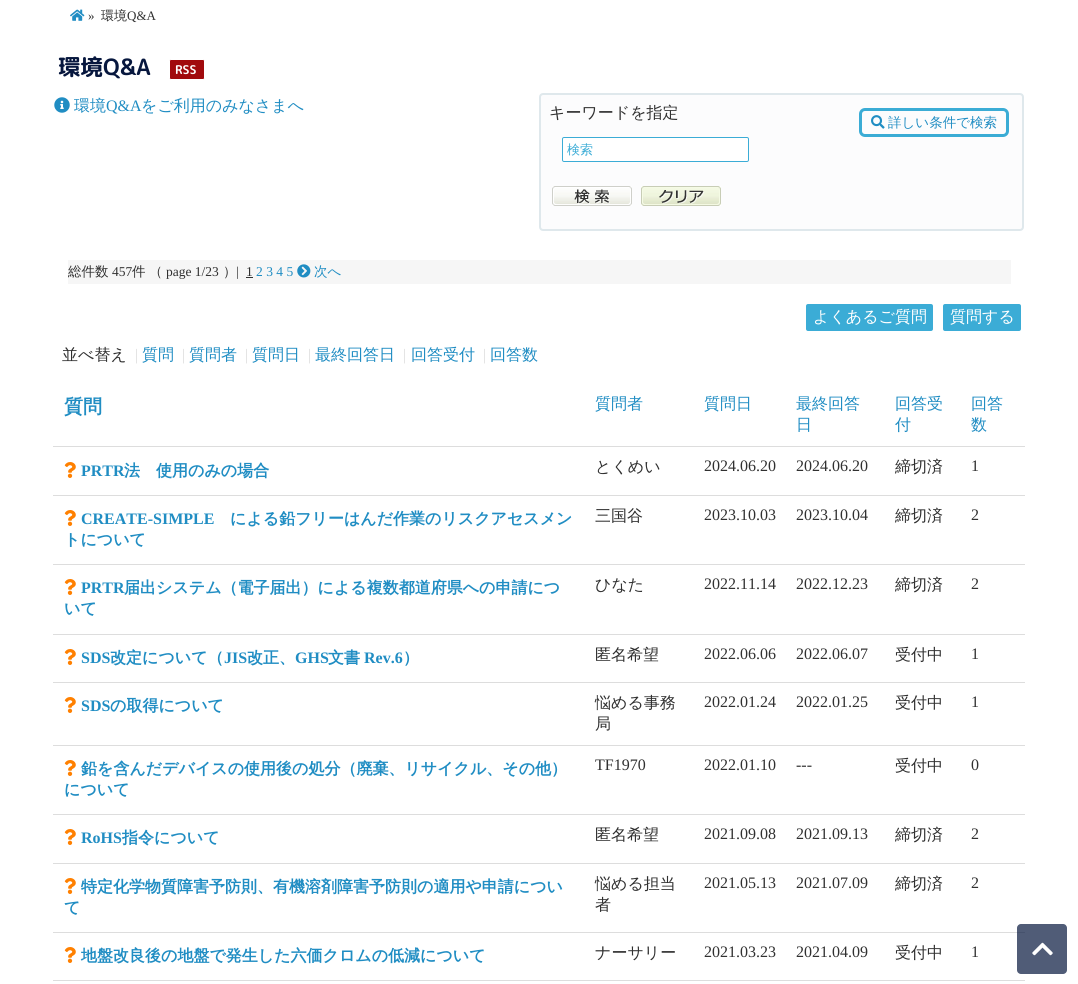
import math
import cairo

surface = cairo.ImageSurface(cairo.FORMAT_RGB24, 1078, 984)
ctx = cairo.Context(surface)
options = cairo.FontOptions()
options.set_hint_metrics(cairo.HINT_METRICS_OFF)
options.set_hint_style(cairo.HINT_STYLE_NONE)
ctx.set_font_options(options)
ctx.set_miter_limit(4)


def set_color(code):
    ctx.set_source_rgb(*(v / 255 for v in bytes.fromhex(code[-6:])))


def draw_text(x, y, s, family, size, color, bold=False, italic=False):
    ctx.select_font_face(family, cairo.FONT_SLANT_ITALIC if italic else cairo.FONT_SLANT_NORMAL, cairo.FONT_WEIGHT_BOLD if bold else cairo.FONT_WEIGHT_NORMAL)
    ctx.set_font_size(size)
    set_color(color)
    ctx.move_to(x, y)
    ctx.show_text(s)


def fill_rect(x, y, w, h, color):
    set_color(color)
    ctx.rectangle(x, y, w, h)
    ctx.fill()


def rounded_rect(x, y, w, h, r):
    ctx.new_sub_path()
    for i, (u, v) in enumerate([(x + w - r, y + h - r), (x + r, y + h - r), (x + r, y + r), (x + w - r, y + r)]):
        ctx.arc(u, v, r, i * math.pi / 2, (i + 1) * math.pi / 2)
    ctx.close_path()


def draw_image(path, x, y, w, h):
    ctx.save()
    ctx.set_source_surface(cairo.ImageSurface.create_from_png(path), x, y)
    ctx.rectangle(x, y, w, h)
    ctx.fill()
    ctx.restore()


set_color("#ffffff")
ctx.paint()
draw_image("assets/img1.png", 70, 9, 15, 12)
draw_text(88, 20, "»", "Liberation Serif", 13, "#303030")
draw_text(101, 20, "環境", "WenQuanYi Zen Hei Medium", 13, "#303030")
draw_text(127, 20, "Q&A", "Liberation Serif", 13, "#303030")
draw_text(58, 75, "環境Q&A", "Rounded Mplus 1c Bold", 22.5, "#07173e", bold=True)
set_color("#a10a0d")
rounded_rect(169.5, 59.5, 35, 20, 1.5)
ctx.fill_preserve()
set_color("#ffffff")
ctx.set_line_width(1)
ctx.stroke()
draw_text(175, 74, "RSS", "Rounded Mplus 1c Bold", 12, "#ffffff", bold=True)
draw_image("assets/img2.png", 54, 97, 16, 16)
draw_text(74, 111, "環境", "WenQuanYi Zen Hei Medium", 16, "#208dc3")
draw_text(106, 111, "Q&A", "Liberation Serif", 16, "#208dc3")
draw_text(141, 111, "をご利用のみなさまへ", "WenQuanYi Zen Hei Medium", 16, "#208dc3")
set_color("#fcfcfd")
rounded_rect(540, 94, 483, 136, 3)
ctx.fill_preserve()
set_color("#dfe8ec")
ctx.set_line_width(2)
ctx.stroke()
draw_text(549, 118, "キーワードを指定", "WenQuanYi Zen Hei Medium", 16, "#303030")
set_color("#ffffff")
rounded_rect(562.5, 137.5, 186, 24, 1.5)
ctx.fill_preserve()
set_color("#3bacd6")
ctx.set_line_width(1)
ctx.stroke()
draw_text(567, 154, "検索", "WenQuanYi Zen Hei Medium", 13, "#3bacd6")
draw_image("assets/img3.png", 552, 186, 80, 20)
draw_image("assets/img4.png", 641, 186, 80, 20)
rounded_rect(860.5, 109.5, 147, 26, 4.5)
set_color("#3bacd5")
ctx.set_line_width(3)
ctx.stroke()
draw_image("assets/img5.png", 871, 115, 14, 14)
draw_text(888, 127, "詳しい条件で検索", "WenQuanYi Zen Hei Medium", 13.5, "#208dc3")
fill_rect(68, 260, 943, 24, "#f6f6f6")
draw_text(68, 276, "総件数", "WenQuanYi Zen Hei Medium", 13.5, "#303030")
draw_text(112, 276, "457", "Liberation Serif", 13.5, "#303030")
draw_text(132, 276, "件", "WenQuanYi Zen Hei Medium", 13.5, "#303030")
draw_text(149, 276, "（", "WenQuanYi Zen Hei Medium", 13.5, "#303030")
draw_text(166, 276, "page 1/23", "Liberation Serif", 13.5, "#303030")
draw_text(223, 276, "）", "WenQuanYi Zen Hei Medium", 13.5, "#303030")
draw_text(236, 276, "|", "Liberation Serif", 13.5, "#303030")
draw_text(246, 276, "1", "Liberation Serif", 13.5, "#303030")
fill_rect(246, 277, 7, 1, "#303030")
draw_text(256, 276, "2 3 4 5", "Liberation Serif", 13.5, "#208dc3")
draw_image("assets/img6.png", 297, 264, 14, 14)
draw_text(314, 276, "次へ", "WenQuanYi Zen Hei Medium", 13.5, "#208dc3")
set_color("#3bacd6")
rounded_rect(806, 304, 127, 27, 2)
ctx.fill()
draw_text(813, 322, "よくあるご質問", "WenQuanYi Zen Hei Medium", 16, "#ffffff")
set_color("#3bacd6")
rounded_rect(943, 304, 78, 27, 2)
ctx.fill()
draw_text(950, 322, "質問する", "WenQuanYi Zen Hei Medium", 16, "#ffffff")
draw_text(62, 360, "並べ替え", "WenQuanYi Zen Hei Medium", 16, "#303030")
draw_text(135, 360, "|", "Liberation Serif", 16, "#dddddd")
draw_text(142, 360, "質問", "WenQuanYi Zen Hei Medium", 16, "#208dc3")
draw_text(182, 360, "|", "Liberation Serif", 16, "#dddddd")
draw_text(189, 360, "質問者", "WenQuanYi Zen Hei Medium", 16, "#208dc3")
draw_text(245, 360, "|", "Liberation Serif", 16, "#dddddd")
draw_text(252, 360, "質問日", "WenQuanYi Zen Hei Medium", 16, "#208dc3")
draw_text(308, 360, "|", "Liberation Serif", 16, "#dddddd")
draw_text(315, 360, "最終回答日", "WenQuanYi Zen Hei Medium", 16, "#208dc3")
draw_text(403, 360, "|", "Liberation Serif", 16, "#dddddd")
draw_text(411, 360, "回答受付", "WenQuanYi Zen Hei Medium", 16, "#208dc3")
draw_text(483, 360, "|", "Liberation Serif", 16, "#dddddd")
draw_text(490, 360, "回答数", "WenQuanYi Zen Hei Medium", 16, "#208dc3")
draw_text(64, 413, "質問", "WenQuanYi Zen Hei", 19, "#208dc3", bold=True)
draw_text(595, 409, "質問者", "WenQuanYi Zen Hei Medium", 16, "#208dc3")
draw_text(704, 409, "質問日", "WenQuanYi Zen Hei Medium", 16, "#208dc3")
draw_text(796, 409, "最終回答", "WenQuanYi Zen Hei Medium", 16, "#208dc3")
draw_text(796, 430, "日", "WenQuanYi Zen Hei Medium", 16, "#208dc3")
draw_text(895, 409, "回答受", "WenQuanYi Zen Hei Medium", 16, "#208dc3")
draw_text(895, 430, "付", "WenQuanYi Zen Hei Medium", 16, "#208dc3")
fill_rect(53, 446, 972, 1, "#dddddd")
draw_text(971, 409, "回答", "WenQuanYi Zen Hei Medium", 16, "#208dc3")
draw_text(971, 430, "数", "WenQuanYi Zen Hei Medium", 16, "#208dc3")
draw_image("assets/img7.png", 64, 462, 12, 16)
draw_text(81, 476, "PRTR", "Liberation Serif", 16, "#208dc3", bold=True)
draw_text(124, 476, "法　使用のみの場合", "WenQuanYi Zen Hei", 16, "#208dc3", bold=True)
draw_text(595, 472, "とくめい", "WenQuanYi Zen Hei Medium", 16, "#303030")
draw_text(704, 471, "2024.06.20", "Liberation Serif", 16, "#303030")
draw_text(796, 471, "2024.06.20", "Liberation Serif", 16, "#303030")
draw_text(895, 472, "締切済", "WenQuanYi Zen Hei Medium", 16, "#303030")
fill_rect(53, 495, 972, 1, "#dddddd")
draw_text(971, 471, "1", "Liberation Serif", 16, "#303030")
draw_image("assets/img7.png", 64, 510, 12, 16)
draw_text(81, 524, "CREATE-SIMPLE", "Liberation Serif", 16, "#208dc3", bold=True)
draw_text(230, 524, "による鉛フリーはんだ作業のリスクアセスメン", "WenQuanYi Zen Hei", 16, "#208dc3", bold=True)
draw_text(64, 545, "トについて", "WenQuanYi Zen Hei", 16, "#208dc3", bold=True)
draw_text(595, 521, "三国谷", "WenQuanYi Zen Hei Medium", 16, "#303030")
draw_text(704, 520, "2023.10.03", "Liberation Serif", 16, "#303030")
draw_text(796, 520, "2023.10.04", "Liberation Serif", 16, "#303030")
draw_text(895, 521, "締切済", "WenQuanYi Zen Hei Medium", 16, "#303030")
fill_rect(53, 564, 972, 1, "#dddddd")
draw_text(971, 520, "2", "Liberation Serif", 16, "#303030")
draw_image("assets/img7.png", 64, 579, 12, 16)
draw_text(81, 593, "PRTR", "Liberation Serif", 16, "#208dc3", bold=True)
draw_text(124, 593, "届出システム（電子届出）による複数都道府県への申請につ", "WenQuanYi Zen Hei", 16, "#208dc3", bold=True)
draw_text(64, 614, "いて", "WenQuanYi Zen Hei", 16, "#208dc3", bold=True)
draw_text(595, 590, "ひなた", "WenQuanYi Zen Hei Medium", 16, "#303030")
draw_text(704, 589, "2022.11.14", "Liberation Serif", 16, "#303030")
draw_text(796, 589, "2022.12.23", "Liberation Serif", 16, "#303030")
draw_text(895, 590, "締切済", "WenQuanYi Zen Hei Medium", 16, "#303030")
fill_rect(53, 634, 972, 1, "#dddddd")
draw_text(971, 589, "2", "Liberation Serif", 16, "#303030")
draw_image("assets/img7.png", 64, 649, 12, 16)
draw_text(81, 663, "SDS", "Liberation Serif", 16, "#208dc3", bold=True)
draw_text(110, 663, "改定について（", "WenQuanYi Zen Hei", 16, "#208dc3", bold=True)
draw_text(224, 663, "JIS", "Liberation Serif", 16, "#208dc3", bold=True)
draw_text(247, 663, "改正、", "WenQuanYi Zen Hei", 16, "#208dc3", bold=True)
draw_text(295, 663, "GHS", "Liberation Serif", 16, "#208dc3", bold=True)
draw_text(328, 663, "文書", "WenQuanYi Zen Hei", 16, "#208dc3", bold=True)
draw_text(364, 663, "Rev.6", "Liberation Serif", 16, "#208dc3", bold=True)
draw_text(403, 663, "）", "WenQuanYi Zen Hei", 16, "#208dc3", bold=True)
draw_text(595, 660, "匿名希望", "WenQuanYi Zen Hei Medium", 16, "#303030")
draw_text(704, 659, "2022.06.06", "Liberation Serif", 16, "#303030")
draw_text(796, 659, "2022.06.07", "Liberation Serif", 16, "#303030")
draw_text(895, 660, "受付中", "WenQuanYi Zen Hei Medium", 16, "#303030")
fill_rect(53, 682, 972, 1, "#dddddd")
draw_text(971, 659, "1", "Liberation Serif", 16, "#303030")
draw_image("assets/img7.png", 64, 697, 12, 16)
draw_text(81, 711, "SDS", "Liberation Serif", 16, "#208dc3", bold=True)
draw_text(110, 711, "の取得について", "WenQuanYi Zen Hei", 16, "#208dc3", bold=True)
draw_text(595, 708, "悩める事務", "WenQuanYi Zen Hei Medium", 16, "#303030")
draw_text(595, 729, "局", "WenQuanYi Zen Hei Medium", 16, "#303030")
draw_text(704, 707, "2022.01.24", "Liberation Serif", 16, "#303030")
draw_text(796, 707, "2022.01.25", "Liberation Serif", 16, "#303030")
draw_text(895, 708, "受付中", "WenQuanYi Zen Hei Medium", 16, "#303030")
fill_rect(53, 745, 972, 1, "#dddddd")
draw_text(971, 707, "1", "Liberation Serif", 16, "#303030")
draw_image("assets/img7.png", 64, 760, 12, 16)
draw_text(81, 774, "鉛を含んだデバイスの使用後の処分（廃棄、リサイクル、その他）", "WenQuanYi Zen Hei", 16, "#208dc3", bold=True)
draw_text(64, 795, "について", "WenQuanYi Zen Hei", 16, "#208dc3", bold=True)
draw_text(595, 770, "TF1970", "Liberation Serif", 16, "#303030")
draw_text(704, 770, "2022.01.10", "Liberation Serif", 16, "#303030")
draw_text(796, 770, "---", "Liberation Serif", 16, "#303030")
draw_text(895, 771, "受付中", "WenQuanYi Zen Hei Medium", 16, "#303030")
fill_rect(53, 814, 972, 1, "#dddddd")
draw_text(971, 770, "0", "Liberation Serif", 16, "#303030")
draw_image("assets/img7.png", 64, 829, 12, 16)
draw_text(81, 843, "RoHS", "Liberation Serif", 16, "#208dc3", bold=True)
draw_text(122, 843, "指令について", "WenQuanYi Zen Hei", 16, "#208dc3", bold=True)
draw_text(595, 840, "匿名希望", "WenQuanYi Zen Hei Medium", 16, "#303030")
draw_text(704, 839, "2021.09.08", "Liberation Serif", 16, "#303030")
draw_text(796, 839, "2021.09.13", "Liberation Serif", 16, "#303030")
draw_text(895, 840, "締切済", "WenQuanYi Zen Hei Medium", 16, "#303030")
fill_rect(53, 863, 972, 1, "#dddddd")
draw_text(971, 839, "2", "Liberation Serif", 16, "#303030")
draw_image("assets/img7.png", 64, 878, 12, 16)
draw_text(81, 892, "特定化学物質障害予防則、有機溶剤障害予防則の適用や申請につい", "WenQuanYi Zen Hei", 16, "#208dc3", bold=True)
draw_text(64, 913, "て", "WenQuanYi Zen Hei", 16, "#208dc3", bold=True)
draw_text(595, 889, "悩める担当", "WenQuanYi Zen Hei Medium", 16, "#303030")
draw_text(595, 910, "者", "WenQuanYi Zen Hei Medium", 16, "#303030")
draw_text(704, 888, "2021.05.13", "Liberation Serif", 16, "#303030")
draw_text(796, 888, "2021.07.09", "Liberation Serif", 16, "#303030")
draw_text(895, 889, "締切済", "WenQuanYi Zen Hei Medium", 16, "#303030")
fill_rect(53, 932, 972, 1, "#dddddd")
draw_text(971, 888, "2", "Liberation Serif", 16, "#303030")
draw_image("assets/img7.png", 64, 947, 12, 16)
draw_text(81, 961, "地盤改良後の地盤で発生した六価クロムの低減について", "WenQuanYi Zen Hei", 16, "#208dc3", bold=True)
draw_text(595, 958, "ナーサリー", "WenQuanYi Zen Hei Medium", 16, "#303030")
draw_text(704, 957, "2021.03.23", "Liberation Serif", 16, "#303030")
draw_text(796, 957, "2021.04.09", "Liberation Serif", 16, "#303030")
draw_text(895, 958, "受付中", "WenQuanYi Zen Hei Medium", 16, "#303030")
fill_rect(53, 980, 972, 1, "#dddddd")
draw_text(971, 957, "1", "Liberation Serif", 16, "#303030")
ctx.set_source_rgba(0.027, 0.09, 0.243, 0.7)
rounded_rect(1017, 924, 50, 50, 4)
ctx.fill()
draw_image("assets/img8.png", 1032, 942, 21, 14)
surface.write_to_png("output.png")
